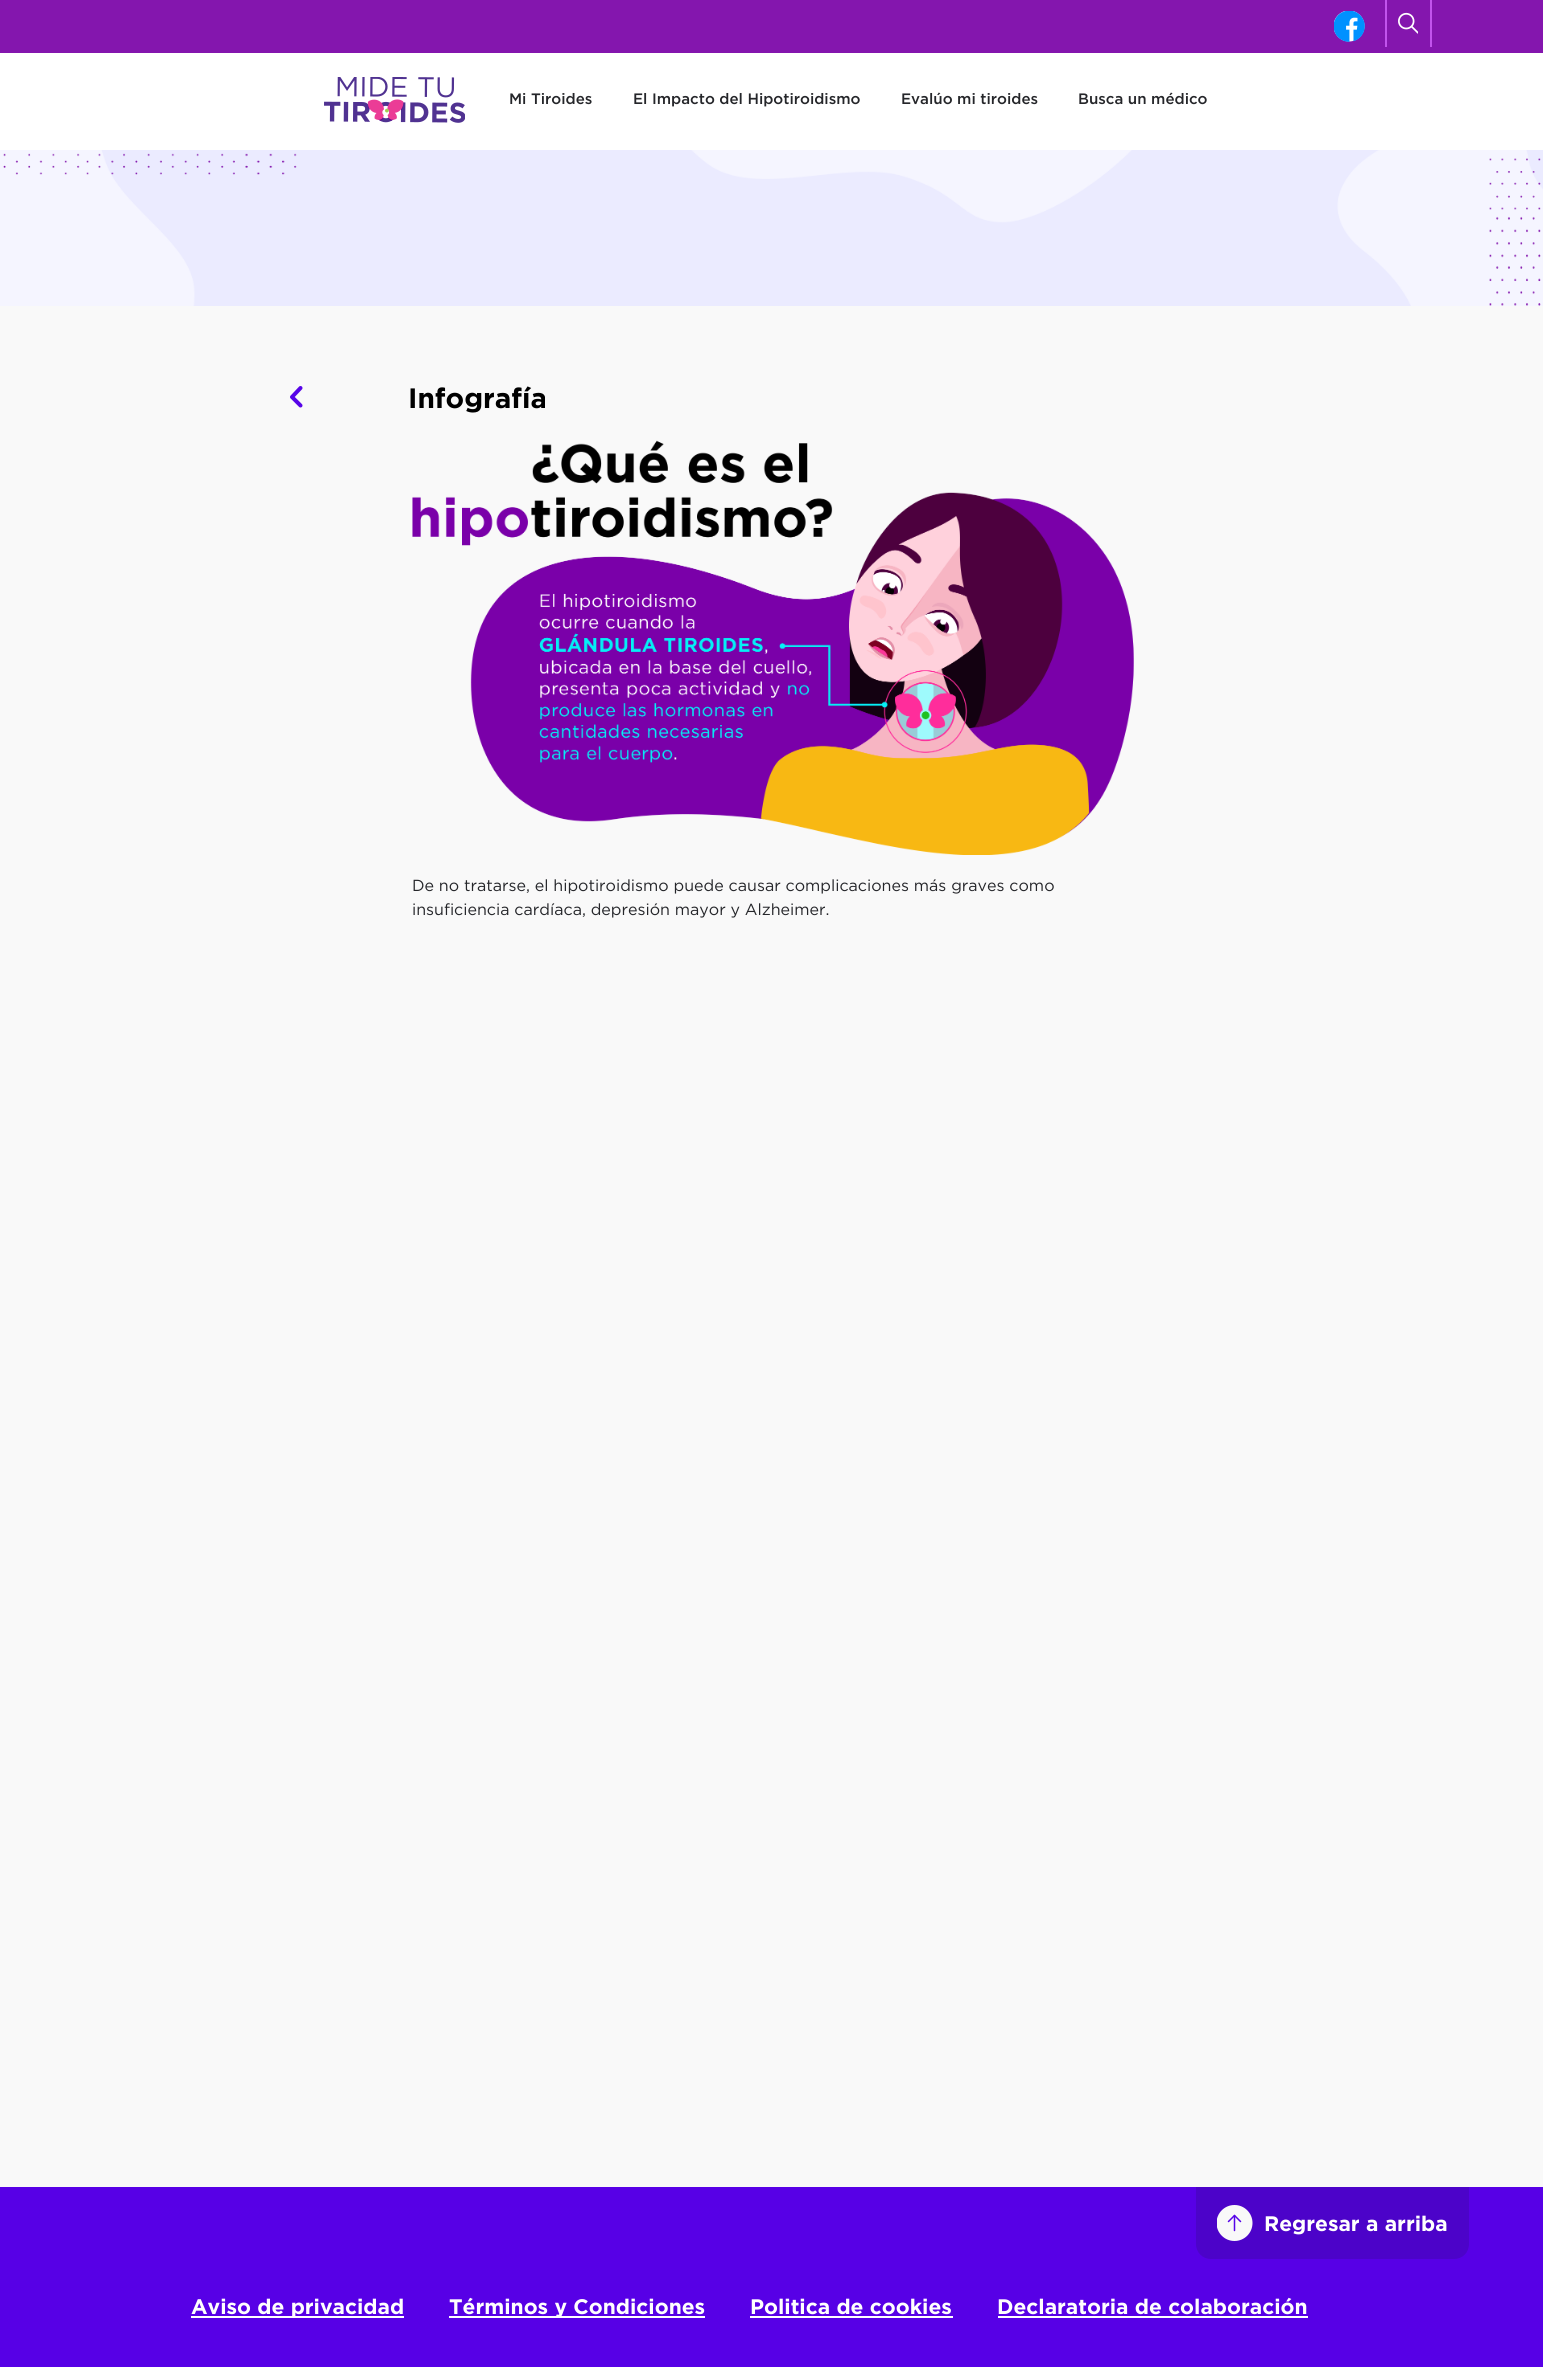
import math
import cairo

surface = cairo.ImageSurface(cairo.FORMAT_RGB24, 1543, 2367)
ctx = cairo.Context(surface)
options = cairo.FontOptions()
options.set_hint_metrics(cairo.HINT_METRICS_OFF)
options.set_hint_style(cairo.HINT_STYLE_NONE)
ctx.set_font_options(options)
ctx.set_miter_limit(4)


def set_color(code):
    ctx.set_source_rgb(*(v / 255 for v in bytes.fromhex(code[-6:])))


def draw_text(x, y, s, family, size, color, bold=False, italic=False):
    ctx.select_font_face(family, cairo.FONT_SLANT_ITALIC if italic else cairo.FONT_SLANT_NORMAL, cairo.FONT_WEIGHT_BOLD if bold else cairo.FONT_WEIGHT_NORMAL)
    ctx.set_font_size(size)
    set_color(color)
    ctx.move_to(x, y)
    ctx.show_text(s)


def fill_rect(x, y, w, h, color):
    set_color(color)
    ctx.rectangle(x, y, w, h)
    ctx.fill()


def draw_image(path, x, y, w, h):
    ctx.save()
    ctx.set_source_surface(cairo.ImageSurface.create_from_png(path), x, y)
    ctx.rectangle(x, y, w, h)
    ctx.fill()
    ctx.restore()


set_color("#f9f9f9")
ctx.paint()
fill_rect(0, 53, 1543, 97, "#ffffff")
fill_rect(0, 0, 1543, 53, "#8416ae")
draw_image("assets/img1.png", 1334, 11, 31, 31)
fill_rect(1430, 0, 2, 47, "#c254ed")
fill_rect(1385, 0, 2, 47, "#c254ed")
draw_image("assets/img2.png", 1398, 12, 20, 22)
draw_image("assets/img3.png", 324, 77, 141, 46)
draw_text(509, 104, "Mi Tiroides", "Gotham Medium", 15.1, "#25262a")
draw_text(633, 104, "El Impacto del Hipotiroidismo", "Gotham Medium", 15.1, "#25262a")
draw_text(901, 104, "Evalúo mi tiroides", "Gotham Medium", 15.1, "#25262a")
draw_text(1078, 104, "Busca un médico", "Gotham Medium", 15.1, "#25262a")
draw_image("assets/img4.png", 0, 150, 1543, 156)
ctx.new_path()
ctx.move_to(300.5, 405.5)
ctx.line_to(292, 397)
ctx.line_to(300.5, 388)
set_color("#5704e8")
ctx.set_line_width(4)
ctx.set_line_cap(cairo.LINE_CAP_ROUND)
ctx.set_line_join(cairo.LINE_JOIN_ROUND)
ctx.stroke()
draw_text(408, 408, "Infografía", "Gotham", 28, "#000000", bold=True)
draw_image("assets/img5.png", 412, 440, 722, 415)
draw_text(412, 891, "De no tratarse, el hipotiroidismo puede causar complicaciones más graves como", "Gotham", 16.05, "#25262a")
draw_text(412, 915, "insuficiencia cardíaca, depresión mayor y Alzheimer.", "Gotham", 16.05, "#25262a")
fill_rect(0, 2187, 1543, 180, "#5700e6")
set_color("#4c03c9")
ctx.new_path()
ctx.move_to(1196, 2187)
ctx.line_to(1469, 2187)
ctx.line_to(1469, 2244)
ctx.curve_to(1469, 2252.5, 1462.5, 2259, 1454, 2259)
ctx.line_to(1211, 2259)
ctx.curve_to(1202.5, 2259, 1196, 2252.5, 1196, 2244)
ctx.close_path()
ctx.fill()
draw_image("assets/img6.png", 1217, 2205, 36, 36)
draw_text(1264, 2231, "Regresar a arriba", "Gotham", 21, "#ffffff", bold=True)
fill_rect(191, 2316, 213, 2, "#ffffff")
draw_text(191, 2314, "Aviso de privacidad", "Gotham", 21, "#ffffff", bold=True)
fill_rect(449, 2316, 256, 2, "#ffffff")
draw_text(449, 2314, "Términos y Condiciones", "Gotham", 21, "#ffffff", bold=True)
draw_text(750, 2314, "Politica de cookies", "Gotham", 21, "#ffffff", bold=True)
fill_rect(750, 2316, 203, 2, "#ffffff")
draw_text(997, 2314, "Declaratoria de colaboración", "Gotham", 21, "#ffffff", bold=True)
fill_rect(998, 2316, 310, 2, "#ffffff")
surface.write_to_png("output.png")
